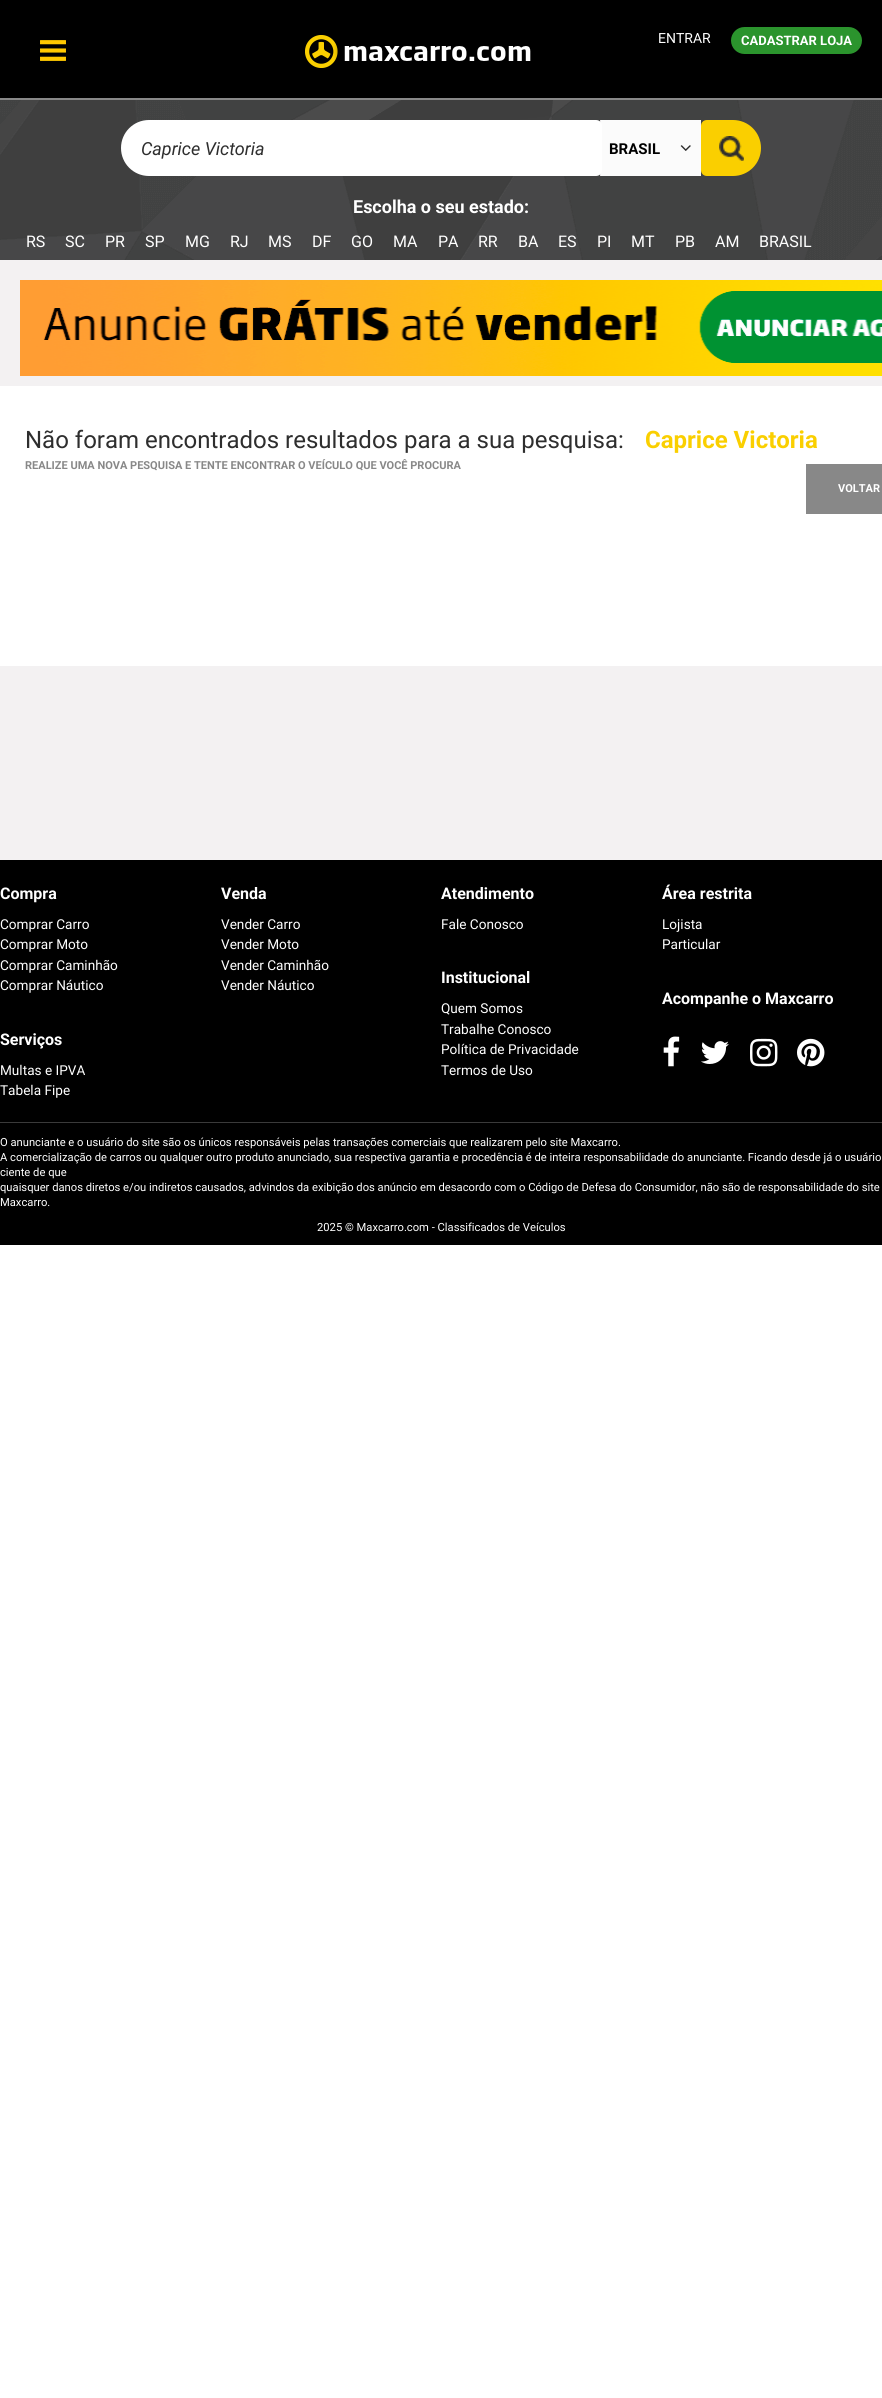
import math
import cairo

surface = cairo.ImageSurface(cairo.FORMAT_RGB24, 882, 2398)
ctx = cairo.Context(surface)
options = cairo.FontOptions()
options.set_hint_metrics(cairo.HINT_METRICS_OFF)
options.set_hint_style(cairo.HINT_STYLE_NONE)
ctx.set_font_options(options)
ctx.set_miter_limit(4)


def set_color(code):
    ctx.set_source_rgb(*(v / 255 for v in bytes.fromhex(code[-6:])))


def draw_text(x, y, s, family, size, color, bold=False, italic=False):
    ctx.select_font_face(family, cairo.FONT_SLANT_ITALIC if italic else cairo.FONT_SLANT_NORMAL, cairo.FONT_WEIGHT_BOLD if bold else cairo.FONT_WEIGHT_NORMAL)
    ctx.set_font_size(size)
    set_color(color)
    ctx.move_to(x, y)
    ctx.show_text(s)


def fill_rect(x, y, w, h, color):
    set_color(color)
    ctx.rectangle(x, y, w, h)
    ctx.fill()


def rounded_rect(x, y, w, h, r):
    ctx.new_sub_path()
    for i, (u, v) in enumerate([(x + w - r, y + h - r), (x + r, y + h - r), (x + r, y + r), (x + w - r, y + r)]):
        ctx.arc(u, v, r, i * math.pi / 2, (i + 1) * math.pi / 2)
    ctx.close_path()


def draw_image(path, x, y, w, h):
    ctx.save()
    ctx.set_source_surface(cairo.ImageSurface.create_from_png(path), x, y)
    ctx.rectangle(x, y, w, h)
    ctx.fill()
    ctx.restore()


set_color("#ffffff")
ctx.paint()
fill_rect(0, 0, 882, 98, "#000000")
fill_rect(0, 98, 882, 2, "#888888")
draw_image("assets/img1.png", 40, 40, 26, 21)
draw_image("assets/img2.png", 305, 35, 226, 33)
draw_text(658, 43, "ENTRAR", "Roboto", 14, "#ffffff")
set_color("#2b942d")
rounded_rect(731, 27, 131, 27, 13.5)
ctx.fill()
draw_text(741, 45, "CADASTRAR LOJA", "Roboto", 13, "#ffffff", bold=True)
fill_rect(0, 100, 882, 160, "#3d3d3d")
draw_image("assets/img3.png", 0, 100, 882, 160)
fill_rect(601, 120, 100, 56, "#fbfbfb")
fill_rect(600, 120, 1, 56, "#e9e7e8")
set_color("#ffffff")
ctx.new_path()
ctx.move_to(149, 120)
ctx.line_to(596, 120)
ctx.curve_to(599.5, 120, 602, 122.5, 602, 126)
ctx.line_to(602, 170)
ctx.curve_to(602, 173.5, 599.5, 176, 596, 176)
ctx.line_to(149, 176)
ctx.curve_to(133.5, 176, 121, 163.5, 121, 148)
ctx.curve_to(121, 132.5, 133.5, 120, 149, 120)
ctx.close_path()
ctx.fill()
draw_text(141, 155, "Caprice Victoria", "Roboto", 18, "#2e2e2e", italic=True)
draw_image("assets/img4.png", 680, 145, 11, 6)
draw_text(609, 154, "BRASIL", "Roboto", 15, "#000000", bold=True)
set_color("#facf00")
ctx.new_path()
ctx.move_to(707, 120)
ctx.line_to(733, 120)
ctx.curve_to(748.5, 120, 761, 132.5, 761, 148)
ctx.curve_to(761, 163.5, 748.5, 176, 733, 176)
ctx.line_to(707, 176)
ctx.curve_to(703.5, 176, 701, 173.5, 701, 170)
ctx.line_to(701, 126)
ctx.curve_to(701, 122.5, 703.5, 120, 707, 120)
ctx.close_path()
ctx.fill()
draw_image("assets/img5.png", 719, 136, 25, 25)
draw_text(353, 213, "Escolha o seu estado:", "Roboto", 18, "#ffffff", bold=True)
draw_text(26, 247, "RS", "Roboto", 16, "#ffffff")
draw_text(65, 247, "SC", "Roboto", 16, "#ffffff")
draw_text(105, 247, "PR", "Roboto", 16, "#ffffff")
draw_text(145, 247, "SP", "Roboto", 16, "#ffffff")
draw_text(185, 247, "MG", "Roboto", 16, "#ffffff")
draw_text(230, 247, "RJ", "Roboto", 16, "#ffffff")
draw_text(268, 247, "MS", "Roboto", 16, "#ffffff")
draw_text(312, 247, "DF", "Roboto", 16, "#ffffff")
draw_text(351, 247, "GO", "Roboto", 16, "#ffffff")
draw_text(393, 247, "MA", "Roboto", 16, "#ffffff")
draw_text(438, 247, "PA", "Roboto", 16, "#ffffff")
draw_text(478, 247, "RR", "Roboto", 16, "#ffffff")
draw_text(518, 247, "BA", "Roboto", 16, "#ffffff")
draw_text(558, 247, "ES", "Roboto", 16, "#ffffff")
draw_text(597, 247, "PI", "Roboto", 16, "#ffffff")
draw_text(631, 247, "MT", "Roboto", 16, "#ffffff")
draw_text(675, 247, "PB", "Roboto", 16, "#ffffff")
draw_text(715, 247, "AM", "Roboto", 16, "#ffffff")
draw_text(759, 247, "BRASIL", "Roboto", 16, "#ffffff")
fill_rect(0, 260, 882, 600, "#f3f1f2")
draw_image("assets/img6.png", 20, 280, 862, 96)
fill_rect(0, 386, 882, 280, "#ffffff")
draw_text(25, 448, "Não foram encontrados resultados para a sua pesquisa:", "Roboto", 24, "#2e2e2e")
draw_text(645, 448, "Caprice Victoria", "Roboto", 24, "#facf00", bold=True)
draw_text(25, 469, "REALIZE UMA NOVA PESQUISA E TENTE ENCONTRAR O VEÍCULO QUE VOCÊ PROCURA", "Roboto", 11, "#888888", bold=True)
fill_rect(806, 464, 76, 50, "#888888")
draw_text(838, 492, "VOLTAR", "Roboto", 11, "#ffffff", bold=True)
fill_rect(0, 860, 882, 262, "#000000")
draw_text(0, 899, "Compra", "Roboto", 16, "#ffffff", bold=True)
draw_text(0, 929, "Comprar Carro", "Roboto", 13.6, "#ffffff")
draw_text(0, 949, "Comprar Moto", "Roboto", 13.6, "#ffffff")
draw_text(0, 970, "Comprar Caminhão", "Roboto", 13.6, "#ffffff")
draw_text(0, 990, "Comprar Náutico", "Roboto", 13.6, "#ffffff")
draw_text(0, 1045, "Serviços", "Roboto", 16, "#ffffff", bold=True)
draw_text(0, 1075, "Multas e IPVA", "Roboto", 13.6, "#ffffff")
draw_text(0, 1095, "Tabela Fipe", "Roboto", 13.6, "#ffffff")
draw_text(221, 899, "Venda", "Roboto", 16, "#ffffff", bold=True)
draw_text(221, 929, "Vender Carro", "Roboto", 13.6, "#ffffff")
draw_text(221, 949, "Vender Moto", "Roboto", 13.6, "#ffffff")
draw_text(221, 970, "Vender Caminhão", "Roboto", 13.6, "#ffffff")
draw_text(221, 990, "Vender Náutico", "Roboto", 13.6, "#ffffff")
draw_text(441, 899, "Atendimento", "Roboto", 16, "#ffffff", bold=True)
draw_text(441, 929, "Fale Conosco", "Roboto", 13.6, "#ffffff")
draw_text(441, 983, "Institucional", "Roboto", 16, "#ffffff", bold=True)
draw_text(441, 1013, "Quem Somos", "Roboto", 13.6, "#ffffff")
draw_text(441, 1034, "Trabalhe Conosco", "Roboto", 13.6, "#ffffff")
draw_text(441, 1054, "Política de Privacidade", "Roboto", 13.6, "#ffffff")
draw_text(441, 1075, "Termos de Uso", "Roboto", 13.6, "#ffffff")
draw_text(662, 899, "Área restrita", "Roboto", 16, "#ffffff", bold=True)
draw_text(662, 929, "Lojista", "Roboto", 13.6, "#ffffff")
draw_text(662, 949, "Particular", "Roboto", 13.6, "#ffffff")
draw_text(662, 1004, "Acompanhe o Maxcarro", "Roboto", 16, "#ffffff", bold=True)
draw_image("assets/img7.png", 663, 1036, 17, 31)
draw_image("assets/img8.png", 701, 1041, 28, 23)
draw_image("assets/img9.png", 750, 1038, 28, 29)
draw_image("assets/img10.png", 797, 1038, 28, 29)
fill_rect(0, 1123, 882, 122, "#000000")
fill_rect(0, 1122, 882, 1, "#3a3a3a")
draw_text(0, 1146, "O anunciante e o usuário do site são os únicos responsáveis pelas transações comerciais que realizarem pelo site Maxcarro.", "Roboto", 11.2, "#ffffff")
draw_text(0, 1161, "A comercialização de carros ou qualquer outro produto anunciado, sua respectiva garantia e procedência é de inteira responsabilidade do anunciante. Ficando desde já o usuário", "Roboto", 11.2, "#ffffff")
draw_text(0, 1176, "ciente de que", "Roboto", 11.2, "#ffffff")
draw_text(0, 1191, "quaisquer danos diretos e/ou indiretos causados, advindos da exibição dos anúncio em desacordo com o Código de Defesa do Consumidor, não são de responsabilidade do site", "Roboto", 11.2, "#ffffff")
draw_text(0, 1206, "Maxcarro.", "Roboto", 11.2, "#ffffff")
draw_text(317, 1231, "2025 © Maxcarro.com - Classificados de Veículos", "Roboto", 11.2, "#ffffff")
surface.write_to_png("output.png")
